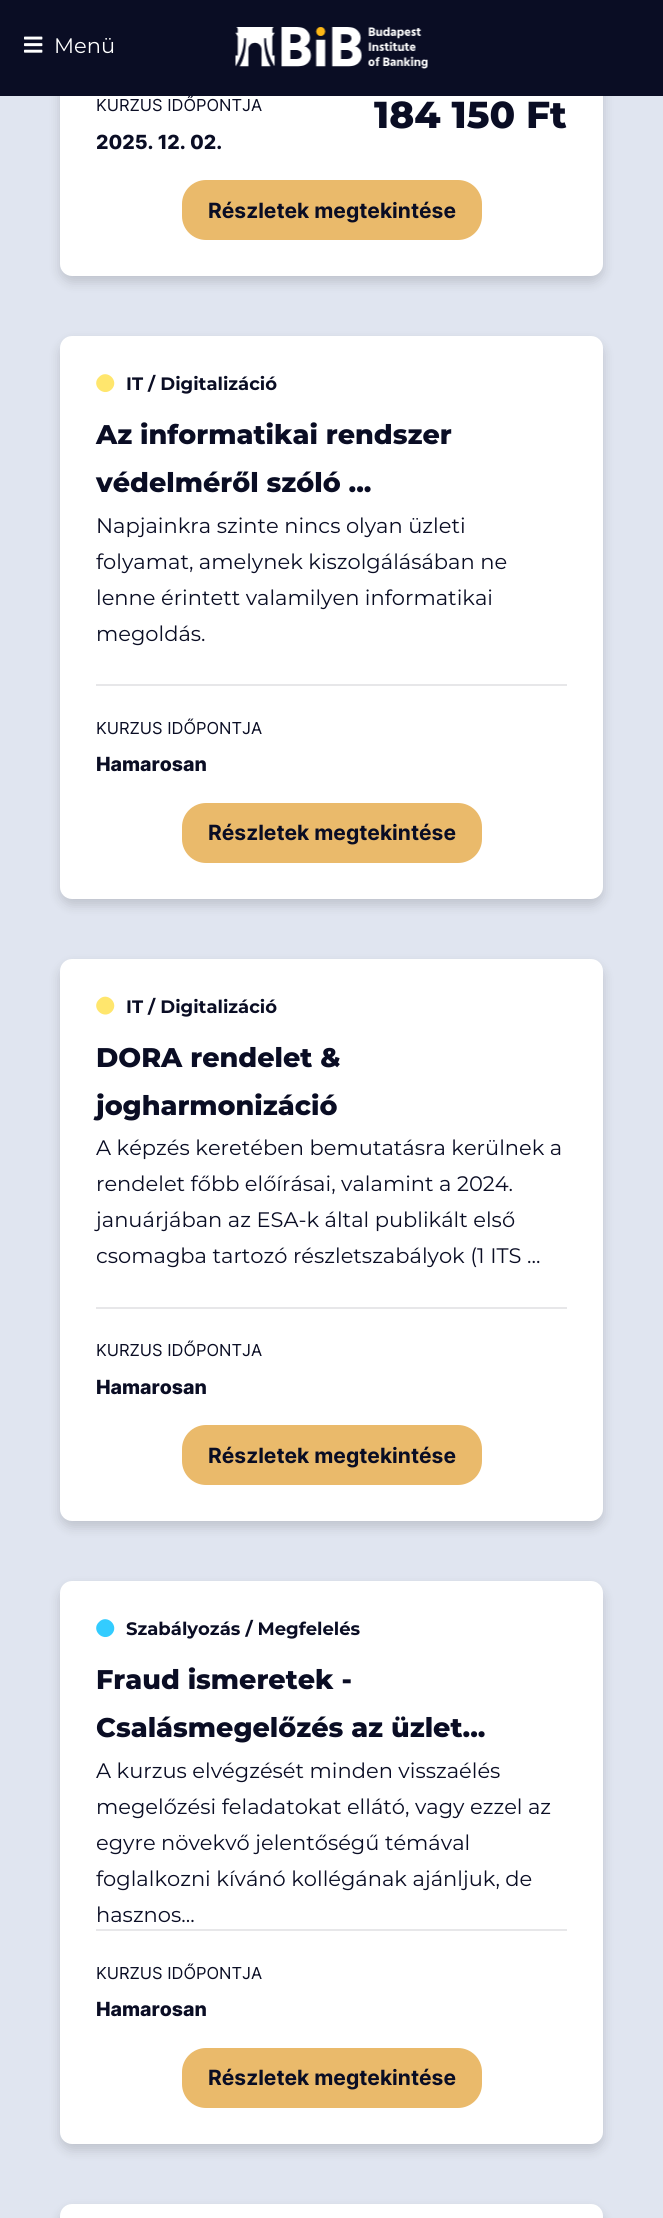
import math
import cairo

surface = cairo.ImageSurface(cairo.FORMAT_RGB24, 663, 2218)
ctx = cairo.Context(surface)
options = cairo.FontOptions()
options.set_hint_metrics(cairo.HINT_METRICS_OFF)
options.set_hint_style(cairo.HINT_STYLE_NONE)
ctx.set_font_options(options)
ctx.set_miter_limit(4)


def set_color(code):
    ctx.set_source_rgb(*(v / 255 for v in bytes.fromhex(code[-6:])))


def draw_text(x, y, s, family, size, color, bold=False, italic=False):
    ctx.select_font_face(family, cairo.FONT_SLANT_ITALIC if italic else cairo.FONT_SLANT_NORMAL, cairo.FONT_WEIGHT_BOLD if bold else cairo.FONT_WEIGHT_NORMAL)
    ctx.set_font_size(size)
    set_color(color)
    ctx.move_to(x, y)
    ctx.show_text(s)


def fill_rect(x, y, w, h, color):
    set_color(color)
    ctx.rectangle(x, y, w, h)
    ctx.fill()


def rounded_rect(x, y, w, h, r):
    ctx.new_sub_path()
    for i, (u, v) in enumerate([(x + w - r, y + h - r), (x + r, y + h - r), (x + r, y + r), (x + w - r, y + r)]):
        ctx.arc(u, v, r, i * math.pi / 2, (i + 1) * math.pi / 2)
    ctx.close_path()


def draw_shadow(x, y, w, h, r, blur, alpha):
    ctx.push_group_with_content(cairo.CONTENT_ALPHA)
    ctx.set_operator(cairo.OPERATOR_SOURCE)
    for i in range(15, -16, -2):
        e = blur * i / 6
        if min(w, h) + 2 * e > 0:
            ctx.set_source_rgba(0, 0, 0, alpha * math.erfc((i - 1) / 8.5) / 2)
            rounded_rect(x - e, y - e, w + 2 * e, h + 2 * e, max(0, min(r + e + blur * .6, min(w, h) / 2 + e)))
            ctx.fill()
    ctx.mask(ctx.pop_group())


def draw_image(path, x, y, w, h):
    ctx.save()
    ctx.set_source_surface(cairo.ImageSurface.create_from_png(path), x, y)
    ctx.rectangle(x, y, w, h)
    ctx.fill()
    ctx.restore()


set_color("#e0e5f0")
ctx.paint()
set_color("#000000")
draw_shadow(60, -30, 543, 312, 12, 6, 0.15)
set_color("#ffffff")
rounded_rect(60, -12, 543, 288, 12)
ctx.fill()
fill_rect(0, 0, 663, 96, "#0a0d24")
draw_image("assets/img1.png", 24, 36, 19, 17)
draw_text(54, 53, "Menü", "Montserrat", 21, "#ffffff")
draw_image("assets/img2.png", 235, 27, 193, 42)
draw_text(96, 111, "KURZUS IDŐPONTJA", "Inter", 16.5, "#0a0d24")
draw_text(96, 149, "2025. 12. 02.", "Inter ExtraBold", 19.5, "#0a0d24")
draw_text(374, 128, "184 150 Ft", "Montserrat ExtraBold", 37.5, "#0a0d24")
set_color("#eaba6b")
rounded_rect(182, 180, 300, 60, 24)
ctx.fill()
draw_text(208, 218, "Részletek megtekintése", "Inter", 21, "#0a0d24", bold=True)
set_color("#000000")
draw_shadow(60, 342, 543, 563, 12, 6, 0.15)
set_color("#ffffff")
rounded_rect(60, 336, 543, 563, 12)
ctx.fill()
set_color("#ffe66d")
ctx.new_path()
ctx.move_to(99, 377)
ctx.curve_to(107, 368.5, 120, 381, 111.5, 389.5)
ctx.curve_to(103, 397.5, 90.5, 385, 99, 377)
ctx.close_path()
ctx.fill()
draw_text(126, 390, "IT / Digitalizáció", "Montserrat", 18, "#0a0d24", bold=True)
draw_text(96, 444, "Az informatikai rendszer", "Montserrat ExtraBold", 27, "#0a0d24")
draw_text(96, 492, "védelméről szóló ...", "Montserrat ExtraBold", 27, "#0a0d24")
draw_text(96, 533, "Napjainkra szinte nincs olyan üzleti", "Montserrat", 21, "#0a0d24")
draw_text(96, 569, "folyamat, amelynek kiszolgálásában ne", "Montserrat", 21, "#0a0d24")
draw_text(96, 605, "lenne érintett valamilyen informatikai", "Montserrat", 21, "#0a0d24")
draw_text(96, 641, "megoldás.", "Montserrat", 21, "#0a0d24")
fill_rect(96, 684, 471, 2, "#e7e7e9")
draw_text(96, 734, "KURZUS IDŐPONTJA", "Inter", 16.5, "#0a0d24")
draw_text(96, 771, "Hamarosan", "Inter ExtraBold", 19.5, "#0a0d24")
set_color("#eaba6b")
rounded_rect(182, 803, 300, 60, 24)
ctx.fill()
draw_text(208, 840, "Részletek megtekintése", "Inter", 21, "#0a0d24", bold=True)
set_color("#000000")
draw_shadow(60, 965, 543, 562, 12, 6, 0.15)
set_color("#ffffff")
rounded_rect(60, 959, 543, 562, 12)
ctx.fill()
set_color("#ffe66d")
ctx.new_path()
ctx.move_to(99, 999.5)
ctx.curve_to(107, 991, 120, 1003.5, 111.5, 1012)
ctx.curve_to(103, 1020, 90.5, 1007.5, 99, 999.5)
ctx.close_path()
ctx.fill()
draw_text(126, 1013, "IT / Digitalizáció", "Montserrat", 18, "#0a0d24", bold=True)
draw_text(96, 1067, "DORA rendelet &", "Montserrat ExtraBold", 27, "#0a0d24")
draw_text(96, 1115, "jogharmonizáció", "Montserrat ExtraBold", 27, "#0a0d24")
draw_text(96, 1155, "A képzés keretében bemutatásra kerülnek a", "Montserrat", 21, "#0a0d24")
draw_text(96, 1191, "rendelet főbb előírásai, valamint a 2024.", "Montserrat", 21, "#0a0d24")
draw_text(96, 1227, "januárjában az ESA-k által publikált első", "Montserrat", 21, "#0a0d24")
draw_text(96, 1263, "csomagba tartozó részletszabályok (1 ITS ...", "Montserrat", 21, "#0a0d24")
fill_rect(96, 1307, 471, 2, "#e7e7e9")
draw_text(96, 1356, "KURZUS IDŐPONTJA", "Inter", 16.5, "#0a0d24")
draw_text(96, 1394, "Hamarosan", "Inter ExtraBold", 19.5, "#0a0d24")
set_color("#eaba6b")
rounded_rect(182, 1425, 300, 60, 24)
ctx.fill()
draw_text(208, 1463, "Részletek megtekintése", "Inter", 21, "#0a0d24", bold=True)
set_color("#000000")
draw_shadow(60, 1587, 543, 563, 12, 6, 0.15)
set_color("#ffffff")
rounded_rect(60, 1581, 543, 563, 12)
ctx.fill()
set_color("#33ccff")
ctx.new_path()
ctx.move_to(99, 1622)
ctx.curve_to(107, 1613.5, 120, 1626, 111.5, 1634.5)
ctx.curve_to(103, 1642.5, 90.5, 1630, 99, 1622)
ctx.close_path()
ctx.fill()
draw_text(126, 1635, "Szabályozás / Megfelelés", "Montserrat", 18, "#0a0d24", bold=True)
draw_text(96, 1689, "Fraud ismeretek -", "Montserrat ExtraBold", 27, "#0a0d24")
draw_text(96, 1737, "Csalásmegelőzés az üzlet...", "Montserrat ExtraBold", 27, "#0a0d24")
draw_text(96, 1778, "A kurzus elvégzését minden visszaélés", "Montserrat", 21, "#0a0d24")
draw_text(96, 1814, "megelőzési feladatokat ellátó, vagy ezzel az", "Montserrat", 21, "#0a0d24")
draw_text(96, 1850, "egyre növekvő jelentőségű témával", "Montserrat", 21, "#0a0d24")
draw_text(96, 1886, "foglalkozni kívánó kollégának ajánljuk, de", "Montserrat", 21, "#0a0d24")
draw_text(96, 1922, "hasznos...", "Montserrat", 21, "#0a0d24")
fill_rect(96, 1929, 471, 2, "#e7e7e9")
draw_text(96, 1979, "KURZUS IDŐPONTJA", "Inter", 16.5, "#0a0d24")
draw_text(96, 2016, "Hamarosan", "Inter ExtraBold", 19.5, "#0a0d24")
set_color("#eaba6b")
rounded_rect(182, 2048, 300, 60, 24)
ctx.fill()
draw_text(208, 2085, "Részletek megtekintése", "Inter", 21, "#0a0d24", bold=True)
set_color("#000000")
draw_shadow(60, 2210, 543, 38, 12, 6, 0.15)
set_color("#ffffff")
rounded_rect(60, 2204, 543, 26, 12)
ctx.fill()
surface.write_to_png("output.png")
